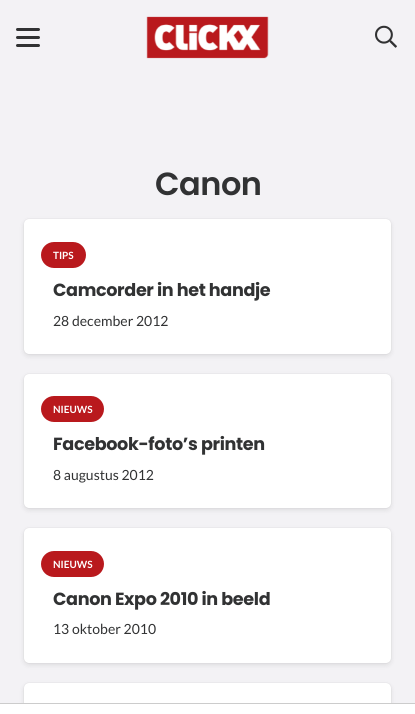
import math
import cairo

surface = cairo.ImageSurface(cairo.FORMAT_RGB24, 415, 714)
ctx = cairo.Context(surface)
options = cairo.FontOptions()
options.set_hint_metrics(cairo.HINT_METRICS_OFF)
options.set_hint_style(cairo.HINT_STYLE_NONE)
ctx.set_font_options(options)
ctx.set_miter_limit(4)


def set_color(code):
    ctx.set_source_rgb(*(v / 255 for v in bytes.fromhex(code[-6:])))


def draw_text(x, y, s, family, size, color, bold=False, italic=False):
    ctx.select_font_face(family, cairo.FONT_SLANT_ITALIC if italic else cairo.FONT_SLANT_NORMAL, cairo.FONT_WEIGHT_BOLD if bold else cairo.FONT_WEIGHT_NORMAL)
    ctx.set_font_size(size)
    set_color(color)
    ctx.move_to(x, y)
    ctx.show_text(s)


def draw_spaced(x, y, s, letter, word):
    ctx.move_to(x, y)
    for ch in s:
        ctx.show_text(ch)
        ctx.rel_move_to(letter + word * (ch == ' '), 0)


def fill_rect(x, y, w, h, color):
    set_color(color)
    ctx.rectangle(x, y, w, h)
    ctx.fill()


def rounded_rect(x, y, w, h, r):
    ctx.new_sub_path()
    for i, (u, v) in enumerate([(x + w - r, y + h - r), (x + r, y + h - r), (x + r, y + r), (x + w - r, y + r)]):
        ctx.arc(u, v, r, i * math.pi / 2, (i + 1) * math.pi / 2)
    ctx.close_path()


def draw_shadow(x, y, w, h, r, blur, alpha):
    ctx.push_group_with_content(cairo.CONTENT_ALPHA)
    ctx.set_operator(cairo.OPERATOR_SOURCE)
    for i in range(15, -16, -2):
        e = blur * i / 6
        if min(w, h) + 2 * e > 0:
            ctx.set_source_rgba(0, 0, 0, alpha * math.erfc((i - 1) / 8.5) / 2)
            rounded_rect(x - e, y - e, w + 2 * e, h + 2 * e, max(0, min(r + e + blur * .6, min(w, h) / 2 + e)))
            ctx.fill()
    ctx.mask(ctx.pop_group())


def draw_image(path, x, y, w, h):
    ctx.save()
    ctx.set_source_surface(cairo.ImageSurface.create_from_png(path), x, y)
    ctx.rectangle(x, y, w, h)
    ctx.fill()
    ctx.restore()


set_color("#f3f2f5")
ctx.paint()
set_color("#313233")
rounded_rect(16, 36, 24, 3, 1.5)
ctx.fill()
rounded_rect(16, 28, 24, 3, 1.5)
ctx.fill()
rounded_rect(16, 44, 24, 3, 1.5)
ctx.fill()
draw_image("assets/img1.png", 146, 16, 123, 43)
draw_image("assets/img2.png", 375, 25, 22, 23)
ctx.select_font_face("Poppins SemiBold")
ctx.set_font_size(32)
draw_spaced(155, 195, "Canon", -0.5, 0)
set_color("#000000")
draw_shadow(24, 221, 367, 135, 5, 2.5, 0.1)
draw_shadow(24, 219, 367, 135, 5, 0.5, 0.1)
set_color("#ffffff")
rounded_rect(24, 219, 367, 135, 5)
ctx.fill()
set_color("#b9191d")
rounded_rect(41, 242, 45, 26, 13)
ctx.fill()
draw_text(53, 259, "TIPS", "Lato", 10, "#ffffff", bold=True)
ctx.select_font_face("Poppins", cairo.FONT_SLANT_NORMAL, cairo.FONT_WEIGHT_BOLD)
ctx.set_font_size(17.6)
set_color("#313233")
draw_spaced(53, 296, "Camcorder in het handje", -0.35, 0)
draw_text(53, 326, "28 december 2012", "Lato", 14, "#313233")
set_color("#000000")
draw_shadow(24, 376, 367, 134, 5, 2.5, 0.1)
draw_shadow(24, 374, 367, 134, 5, 0.5, 0.1)
set_color("#ffffff")
rounded_rect(24, 374, 367, 134, 5)
ctx.fill()
set_color("#b9191d")
rounded_rect(41, 396, 63, 26, 13)
ctx.fill()
draw_text(53, 413, "NIEUWS", "Lato", 10, "#ffffff", bold=True)
ctx.select_font_face("Poppins", cairo.FONT_SLANT_NORMAL, cairo.FONT_WEIGHT_BOLD)
ctx.set_font_size(17.6)
set_color("#313233")
draw_spaced(53, 450, "Facebook-foto’s printen", -0.35, 0)
draw_text(53, 480, "8 augustus 2012", "Lato", 14, "#313233")
set_color("#000000")
draw_shadow(24, 530, 367, 135, 5, 2.5, 0.1)
draw_shadow(24, 528, 367, 135, 5, 0.5, 0.1)
set_color("#ffffff")
rounded_rect(24, 528, 367, 135, 5)
ctx.fill()
set_color("#b9191d")
rounded_rect(41, 551, 63, 26, 13)
ctx.fill()
draw_text(53, 568, "NIEUWS", "Lato", 10, "#ffffff", bold=True)
ctx.select_font_face("Poppins", cairo.FONT_SLANT_NORMAL, cairo.FONT_WEIGHT_BOLD)
ctx.set_font_size(17.6)
set_color("#313233")
draw_spaced(53, 605, "Canon Expo 2010 in beeld", -0.35, 0)
draw_text(53, 634, "13 oktober 2010", "Lato", 14, "#313233")
set_color("#000000")
draw_shadow(24, 685, 367, 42, 5, 2.5, 0.1)
draw_shadow(24, 683, 367, 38, 5, 0.5, 0.1)
set_color("#ffffff")
rounded_rect(24, 683, 367, 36, 5)
ctx.fill()
fill_rect(0, 704, 415, 10, "#ffffff")
fill_rect(0, 703, 415, 1, "#cccccc")
surface.write_to_png("output.png")
